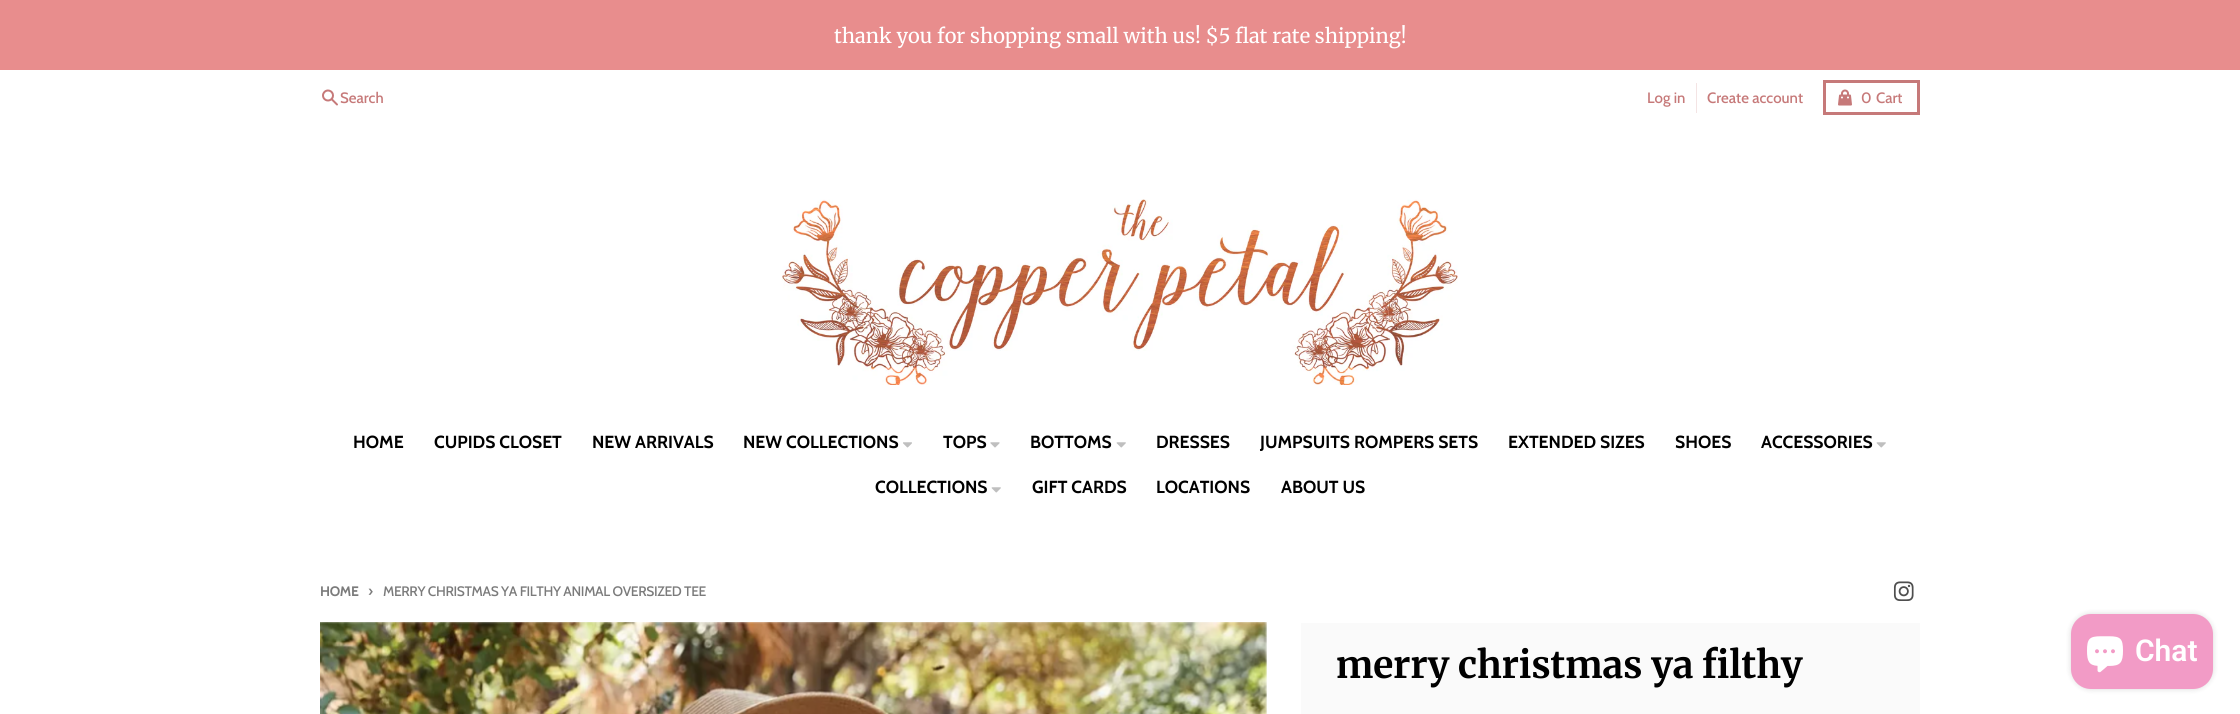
import math
import cairo

surface = cairo.ImageSurface(cairo.FORMAT_RGB24, 2240, 714)
ctx = cairo.Context(surface)
options = cairo.FontOptions()
options.set_hint_metrics(cairo.HINT_METRICS_OFF)
options.set_hint_style(cairo.HINT_STYLE_NONE)
ctx.set_font_options(options)
ctx.set_miter_limit(4)


def set_color(code):
    ctx.set_source_rgb(*(v / 255 for v in bytes.fromhex(code[-6:])))


def draw_text(x, y, s, family, size, color, bold=False, italic=False):
    ctx.select_font_face(family, cairo.FONT_SLANT_ITALIC if italic else cairo.FONT_SLANT_NORMAL, cairo.FONT_WEIGHT_BOLD if bold else cairo.FONT_WEIGHT_NORMAL)
    ctx.set_font_size(size)
    set_color(color)
    ctx.move_to(x, y)
    ctx.show_text(s)


def draw_spaced(x, y, s, letter, word):
    ctx.move_to(x, y)
    for ch in s:
        ctx.show_text(ch)
        ctx.rel_move_to(letter + word * (ch == ' '), 0)


def fill_rect(x, y, w, h, color):
    set_color(color)
    ctx.rectangle(x, y, w, h)
    ctx.fill()


def rounded_rect(x, y, w, h, r):
    ctx.new_sub_path()
    for i, (u, v) in enumerate([(x + w - r, y + h - r), (x + r, y + h - r), (x + r, y + r), (x + w - r, y + r)]):
        ctx.arc(u, v, r, i * math.pi / 2, (i + 1) * math.pi / 2)
    ctx.close_path()


def draw_shadow(x, y, w, h, r, blur, alpha):
    ctx.push_group_with_content(cairo.CONTENT_ALPHA)
    ctx.set_operator(cairo.OPERATOR_SOURCE)
    for i in range(15, -16, -2):
        e = blur * i / 6
        if min(w, h) + 2 * e > 0:
            ctx.set_source_rgba(0, 0, 0, alpha * math.erfc((i - 1) / 8.5) / 2)
            rounded_rect(x - e, y - e, w + 2 * e, h + 2 * e, max(0, min(r + e + blur * .6, min(w, h) / 2 + e)))
            ctx.fill()
    ctx.mask(ctx.pop_group())


def draw_image(path, x, y, w, h):
    ctx.save()
    ctx.set_source_surface(cairo.ImageSurface.create_from_png(path), x, y)
    ctx.rectangle(x, y, w, h)
    ctx.fill()
    ctx.restore()


set_color("#e88d8d")
ctx.paint()
draw_text(834, 43, "thank you for shopping small with us! $5 flat rate shipping!", "Merriweather", 20, "#ffffff")
fill_rect(0, 70, 2240, 644, "#ffffff")
draw_image("assets/img1.png", 322, 89, 16, 17)
draw_text(340, 103, "Search", "Cabin Medium", 15, "#c67979")
draw_text(1647, 103, "Log in", "Cabin Medium", 15, "#c67979")
fill_rect(1696, 83, 1, 30, "#f4e4e4")
draw_text(1707, 103, "Create account", "Cabin Medium", 15, "#c67979")
ctx.rectangle(1824.5, 81.5, 94, 32)
ctx.set_line_width(3)
ctx.stroke()
draw_image("assets/img2.png", 1838, 89, 14, 17)
draw_text(1861, 103, "0", "Cabin Medium", 15, "#c67979")
draw_text(1876, 103, "Cart", "Cabin Medium", 15, "#c67979")
draw_image("assets/img3.png", 782, 199, 676, 186)
draw_text(353, 448, "HOME", "Cabin", 17.5, "#000000", bold=True)
draw_text(434, 448, "CUPIDS CLOSET", "Cabin", 17.5, "#000000", bold=True)
draw_text(592, 448, "NEW ARRIVALS", "Cabin", 17.5, "#000000", bold=True)
draw_text(743, 448, "NEW COLLECTIONS", "Cabin", 17.5, "#000000", bold=True)
draw_image("assets/img4.png", 903, 442, 9, 6)
draw_text(943, 448, "TOPS", "Cabin", 17.5, "#000000", bold=True)
draw_image("assets/img5.png", 990, 442, 10, 6)
draw_text(1030, 448, "BOTTOMS", "Cabin", 17.5, "#000000", bold=True)
draw_image("assets/img6.png", 1116, 442, 10, 6)
draw_text(1156, 448, "DRESSES", "Cabin", 17.5, "#000000", bold=True)
draw_text(1260, 448, "JUMPSUITS ROMPERS SETS", "Cabin", 17.5, "#000000", bold=True)
draw_text(1508, 448, "EXTENDED SIZES", "Cabin", 17.5, "#000000", bold=True)
draw_text(1675, 448, "SHOES", "Cabin", 17.5, "#000000", bold=True)
draw_text(1761, 448, "ACCESSORIES", "Cabin", 17.5, "#000000", bold=True)
draw_image("assets/img6.png", 1876, 442, 10, 6)
draw_text(875, 493, "COLLECTIONS", "Cabin", 17.5, "#000000", bold=True)
draw_image("assets/img6.png", 991, 487, 10, 6)
draw_text(1032, 493, "GIFT CARDS", "Cabin", 17.5, "#000000", bold=True)
draw_text(1156, 493, "LOCATIONS", "Cabin", 17.5, "#000000", bold=True)
draw_text(1281, 493, "ABOUT US", "Cabin", 17.5, "#000000", bold=True)
ctx.set_font_size(13.75)
set_color("#7b7b7b")
draw_spaced(320, 596, "HOME", -0.35, 0)
ctx.select_font_face("Cabin Medium")
ctx.set_font_size(15)
draw_spaced(368, 596, "›", -0.35, 0)
ctx.set_font_size(13.75)
draw_spaced(383, 596, "MERRY CHRISTMAS YA FILTHY ANIMAL OVERSIZED TEE", -0.35, 0)
draw_image("assets/img7.png", 1893, 581, 21, 20)
draw_image("assets/img8.png", 320, 622, 947, 92)
fill_rect(1301, 623, 619, 91, "#fafafa")
draw_text(1336, 678, "merry christmas ya filthy", "Merriweather", 37.5, "#000000", bold=True)
set_color("#000000")
draw_shadow(2071, 614, 142, 75, 20, 3, 0.15)
set_color("#f29bc6")
rounded_rect(2071, 614, 142, 75, 20)
ctx.fill()
draw_image("assets/img9.png", 2087, 636, 36, 37)
draw_text(2135, 661, "Chat", "Roboto SemiBold", 30, "#ffffff")
surface.write_to_png("output.png")
